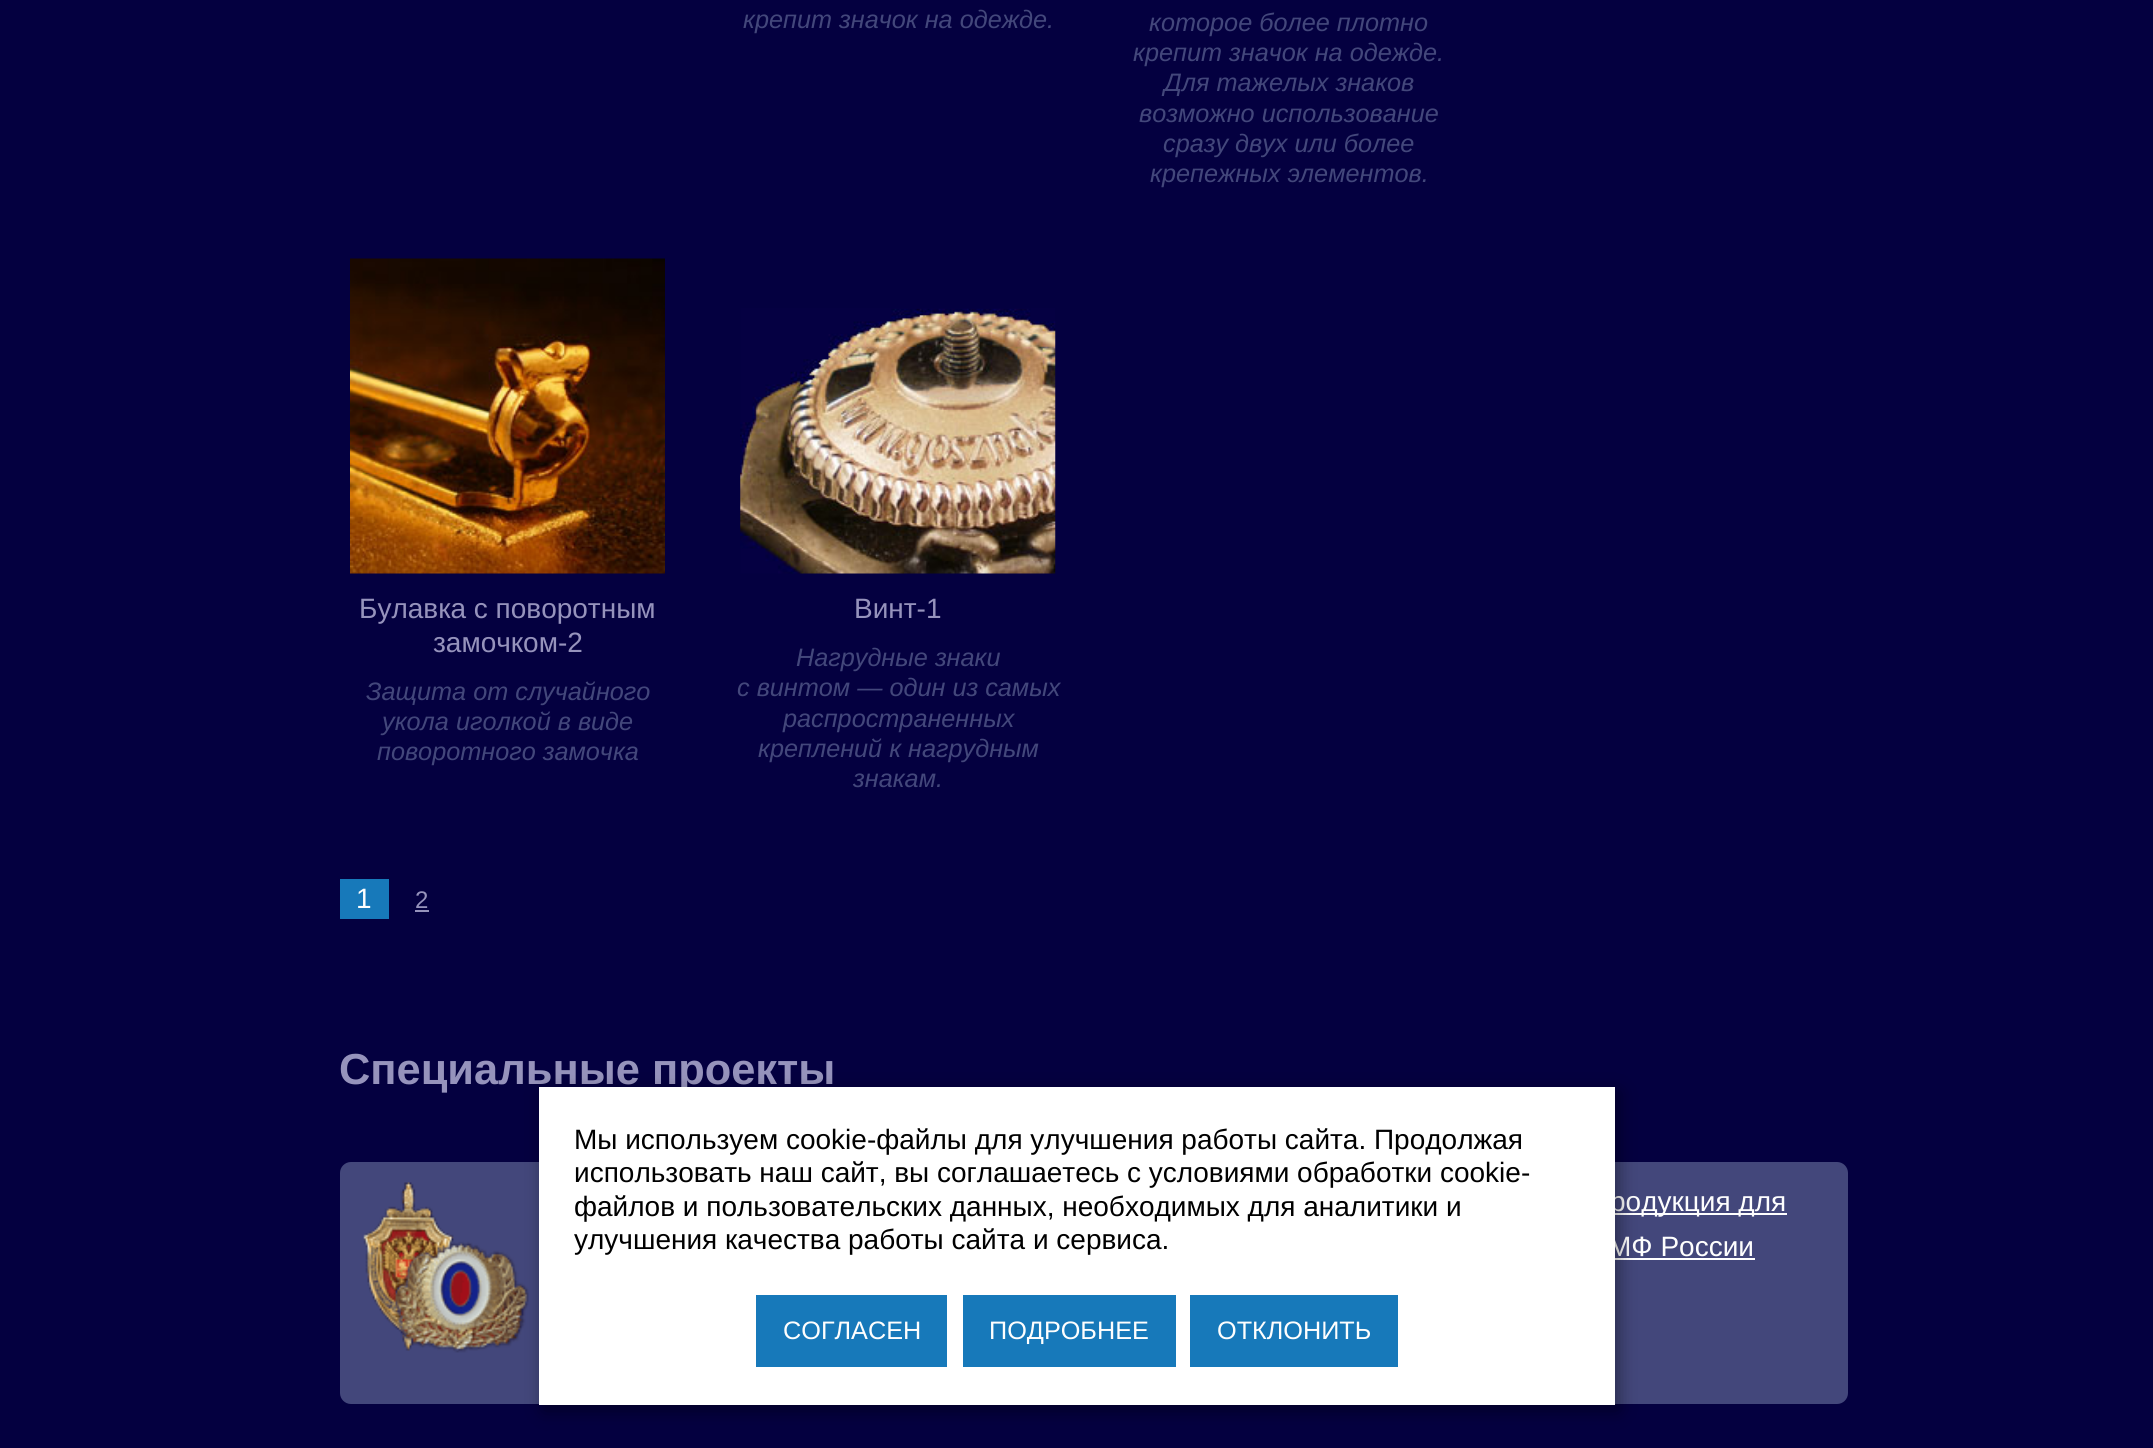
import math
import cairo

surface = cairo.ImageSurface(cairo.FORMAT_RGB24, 2153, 1448)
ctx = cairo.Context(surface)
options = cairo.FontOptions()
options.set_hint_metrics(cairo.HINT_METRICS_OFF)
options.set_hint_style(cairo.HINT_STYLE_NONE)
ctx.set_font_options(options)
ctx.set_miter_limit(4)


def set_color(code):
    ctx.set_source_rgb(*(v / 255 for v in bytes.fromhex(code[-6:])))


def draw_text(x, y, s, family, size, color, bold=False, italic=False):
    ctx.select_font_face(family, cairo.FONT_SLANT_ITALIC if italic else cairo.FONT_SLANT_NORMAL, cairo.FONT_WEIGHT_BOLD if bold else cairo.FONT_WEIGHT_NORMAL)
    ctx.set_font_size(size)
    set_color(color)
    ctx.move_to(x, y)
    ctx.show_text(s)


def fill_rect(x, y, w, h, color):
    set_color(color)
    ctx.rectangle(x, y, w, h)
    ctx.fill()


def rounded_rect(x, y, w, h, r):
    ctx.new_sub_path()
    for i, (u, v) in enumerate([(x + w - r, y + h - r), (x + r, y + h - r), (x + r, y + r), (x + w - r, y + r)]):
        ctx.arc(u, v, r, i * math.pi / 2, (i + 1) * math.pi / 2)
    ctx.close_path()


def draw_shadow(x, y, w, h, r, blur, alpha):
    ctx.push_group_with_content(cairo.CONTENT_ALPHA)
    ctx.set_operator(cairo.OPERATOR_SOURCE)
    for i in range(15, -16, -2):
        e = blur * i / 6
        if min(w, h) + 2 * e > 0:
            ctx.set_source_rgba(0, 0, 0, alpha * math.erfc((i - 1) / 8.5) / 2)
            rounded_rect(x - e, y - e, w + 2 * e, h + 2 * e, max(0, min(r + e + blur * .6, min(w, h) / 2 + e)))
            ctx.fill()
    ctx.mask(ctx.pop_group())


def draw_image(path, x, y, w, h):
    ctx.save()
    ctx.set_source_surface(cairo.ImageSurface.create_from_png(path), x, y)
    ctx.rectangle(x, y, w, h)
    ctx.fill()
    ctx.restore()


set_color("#040040")
ctx.paint()
draw_text(743, 28, "крепит значок на одежде.", "Liberation Sans", 25.25, "#43477b", italic=True)
draw_text(1149, 31, "которое более плотно", "Liberation Sans", 25.25, "#43477b", italic=True)
draw_text(1133, 61, "крепит значок на одежде.", "Liberation Sans", 25.25, "#43477b", italic=True)
draw_text(1164, 91, "Для тажелых знаков", "Liberation Sans", 25.25, "#43477b", italic=True)
draw_text(1139, 122, "возможно использование", "Liberation Sans", 25.25, "#43477b", italic=True)
draw_text(1163, 152, "сразу двух или более", "Liberation Sans", 25.25, "#43477b", italic=True)
draw_text(1150, 182, "крепежных элементов.", "Liberation Sans", 25.25, "#43477b", italic=True)
draw_image("assets/img1.png", 350, 258, 315, 316)
draw_text(359, 618, "Булавка с поворотным", "Liberation Sans", 28, "#9693bc")
draw_text(433, 652, "замочком-2", "Liberation Sans", 28, "#9693bc")
draw_text(366, 700, "Защита от случайного", "Liberation Sans", 25.25, "#43477b", italic=True)
draw_text(382, 730, "укола иголкой в виде", "Liberation Sans", 25.25, "#43477b", italic=True)
draw_text(377, 760, "поворотного замочка", "Liberation Sans", 25.25, "#43477b", italic=True)
draw_image("assets/img2.png", 740, 308, 316, 266)
draw_text(854, 618, "Винт-1", "Liberation Sans", 28, "#9693bc")
draw_text(796, 666, "Нагрудные знаки", "Liberation Sans", 25.25, "#43477b", italic=True)
draw_text(737, 696, "с винтом — один из самых", "Liberation Sans", 25.25, "#43477b", italic=True)
draw_text(783, 727, "распространенных", "Liberation Sans", 25.25, "#43477b", italic=True)
draw_text(758, 757, "креплений к нагрудным", "Liberation Sans", 25.25, "#43477b", italic=True)
draw_text(853, 787, "знакам.", "Liberation Sans", 25.25, "#43477b", italic=True)
fill_rect(340, 879, 49, 40, "#1779ba")
draw_text(356, 908, "1", "Liberation Sans", 28, "#fefefe")
draw_text(415, 908, "2", "Liberation Sans", 24, "#9693bc")
fill_rect(415, 910, 14, 2, "#9693bc")
draw_text(339, 1084, "Специальные проекты", "Liberation Sans", 43.4, "#9693bc", bold=True)
set_color("#43477b")
rounded_rect(340, 1162, 467, 242, 11)
ctx.fill()
draw_image("assets/img3.png", 363, 1182, 166, 171)
rounded_rect(1379, 1162, 469, 242, 11)
ctx.fill()
fill_rect(1615, 1213, 172, 2, "#ffffff")
draw_text(1610, 1211, "родукция для", "Liberation Sans", 28, "#fefefe")
draw_text(1608, 1256, "МФ России", "Liberation Sans", 28, "#fefefe")
fill_rect(1615, 1258, 140, 2, "#ffffff")
set_color("#000000")
draw_shadow(543, 1092, 1076, 319, 0, 9, 0.4)
fill_rect(539, 1087, 1076, 318, "#ffffff")
draw_text(574, 1149, "Мы используем cookie-файлы для улучшения работы сайта. Продолжая", "Liberation Sans", 28, "#000000")
draw_text(574, 1182, "использовать наш сайт, вы соглашаетесь с условиями обработки cookie-", "Liberation Sans", 28, "#000000")
draw_text(574, 1216, "файлов и пользовательских данных, необходимых для аналитики и", "Liberation Sans", 28, "#000000")
draw_text(574, 1249, "улучшения качества работы сайта и сервиса.", "Liberation Sans", 28, "#000000")
fill_rect(756, 1295, 191, 72, "#1779ba")
draw_text(783, 1339, "СОГЛАСЕН", "Liberation Sans", 25.25, "#fefefe")
fill_rect(963, 1295, 213, 72, "#1779ba")
draw_text(989, 1339, "ПОДРОБНЕЕ", "Liberation Sans", 25.25, "#fefefe")
fill_rect(1190, 1295, 208, 72, "#1779ba")
draw_text(1217, 1339, "ОТКЛОНИТЬ", "Liberation Sans", 25.25, "#fefefe")
surface.write_to_png("output.png")
